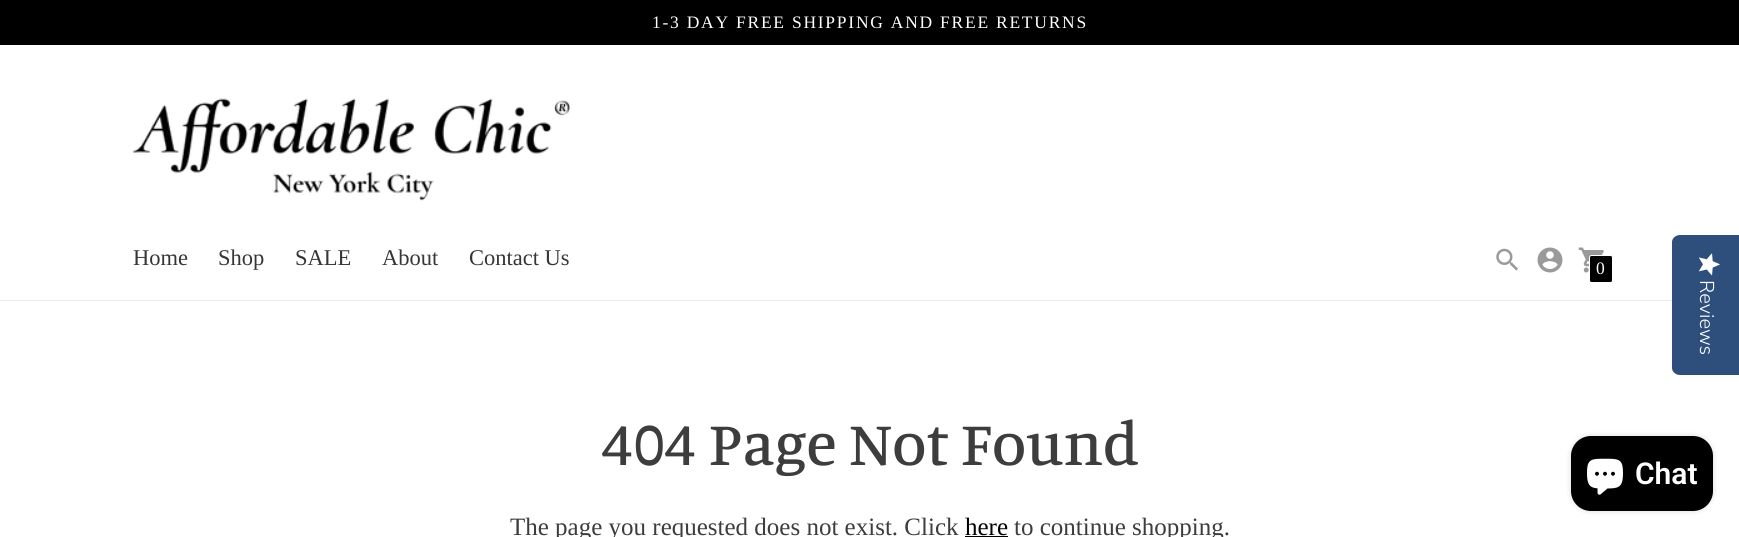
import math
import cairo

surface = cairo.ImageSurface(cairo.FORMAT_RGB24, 1739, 537)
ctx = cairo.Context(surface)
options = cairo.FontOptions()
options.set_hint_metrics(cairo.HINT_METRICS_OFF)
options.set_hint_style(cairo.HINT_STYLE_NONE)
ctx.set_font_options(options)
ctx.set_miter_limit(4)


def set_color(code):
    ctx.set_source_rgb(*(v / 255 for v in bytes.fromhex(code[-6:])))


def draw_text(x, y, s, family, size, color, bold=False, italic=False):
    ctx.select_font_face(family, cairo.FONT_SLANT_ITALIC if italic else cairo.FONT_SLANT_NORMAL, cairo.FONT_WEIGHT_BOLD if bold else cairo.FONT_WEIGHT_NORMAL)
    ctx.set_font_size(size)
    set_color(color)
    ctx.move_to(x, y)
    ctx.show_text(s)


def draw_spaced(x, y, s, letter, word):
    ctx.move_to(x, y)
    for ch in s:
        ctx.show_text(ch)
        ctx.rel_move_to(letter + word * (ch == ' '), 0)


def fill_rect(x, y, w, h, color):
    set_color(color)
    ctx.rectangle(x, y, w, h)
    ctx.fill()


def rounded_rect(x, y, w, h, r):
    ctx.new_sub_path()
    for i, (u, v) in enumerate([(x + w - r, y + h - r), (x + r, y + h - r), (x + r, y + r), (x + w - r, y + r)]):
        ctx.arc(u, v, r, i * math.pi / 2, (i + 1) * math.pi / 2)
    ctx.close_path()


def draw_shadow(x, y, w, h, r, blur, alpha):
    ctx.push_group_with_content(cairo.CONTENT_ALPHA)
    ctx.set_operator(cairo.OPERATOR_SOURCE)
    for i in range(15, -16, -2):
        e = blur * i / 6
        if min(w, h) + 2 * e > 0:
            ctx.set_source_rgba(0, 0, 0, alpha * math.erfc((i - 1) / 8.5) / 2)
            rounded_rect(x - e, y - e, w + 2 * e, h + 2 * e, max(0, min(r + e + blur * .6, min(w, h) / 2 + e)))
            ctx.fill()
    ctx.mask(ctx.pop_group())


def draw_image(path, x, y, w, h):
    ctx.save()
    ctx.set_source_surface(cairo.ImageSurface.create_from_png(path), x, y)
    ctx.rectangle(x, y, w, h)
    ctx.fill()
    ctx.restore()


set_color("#ffffff")
ctx.paint()
fill_rect(0, 0, 1739, 45, "#000000")
ctx.select_font_face("Liberation Serif")
ctx.set_font_size(17.5)
set_color("#ffffff")
draw_spaced(652, 28, "1-3 DAY FREE SHIPPING AND FREE RETURNS", 1.75, 0)
fill_rect(0, 300, 1672, 1, "#eeeae7")
draw_image("assets/img1.png", 132, 98, 438, 103)
draw_text(133, 265, "Home", "Liberation Serif", 22.5, "#363636")
draw_text(218, 265, "Shop", "Liberation Serif", 22.5, "#363636")
draw_text(295, 265, "SALE", "Liberation Serif", 22.5, "#363636")
draw_text(382, 265, "About", "Liberation Serif", 22.5, "#363636")
draw_text(469, 265, "Contact Us", "Liberation Serif", 22.5, "#363636")
draw_image("assets/img2.png", 1496, 248, 22, 23)
draw_image("assets/img3.png", 1537, 247, 26, 26)
draw_image("assets/img4.png", 1578, 247, 26, 26)
set_color("#000000")
rounded_rect(1589.5, 255.5, 23, 27, 2)
ctx.fill_preserve()
set_color("#ffffff")
ctx.set_line_width(1)
ctx.stroke()
draw_text(1596, 274, "0", "Liberation Serif", 17.5, "#ffffff")
draw_text(602, 465, "404 Page Not Found", "Manuale Medium", 62.5, "#3d3d3d")
draw_text(510, 535, "The page you requested does not exist. Click", "Liberation Serif", 25, "#3d3d3d")
draw_text(965, 535, "here", "Liberation Serif", 25, "#000000")
fill_rect(965, 536, 43, 1, "#000000")
draw_text(1014, 535, "to continue shopping.", "Liberation Serif", 25, "#3d3d3d")
set_color("#2e4f7c")
ctx.new_path()
ctx.move_to(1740, 235)
ctx.line_to(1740, 375)
ctx.line_to(1680, 375)
ctx.curve_to(1676, 375, 1672, 372, 1672, 368)
ctx.line_to(1672, 242)
ctx.curve_to(1672, 238, 1676, 235, 1680, 235)
ctx.close_path()
ctx.fill()
draw_image("assets/img5.png", 1698, 253, 22, 23)
ctx.save()
ctx.translate(1700, 280)
ctx.rotate(90 * math.pi / 180)
draw_text(0, 0, "Reviews", "Nunito Sans Light", 20, "#ffffff")
ctx.restore()
set_color("#000000")
draw_shadow(1571, 436, 142, 75, 20, 3, 0.15)
set_color("#000000")
rounded_rect(1571, 436, 142, 75, 20)
ctx.fill()
draw_image("assets/img6.png", 1587, 458, 36, 37)
draw_text(1635, 484, "Chat", "Roboto SemiBold", 30, "#ffffff")
surface.write_to_png("output.png")
